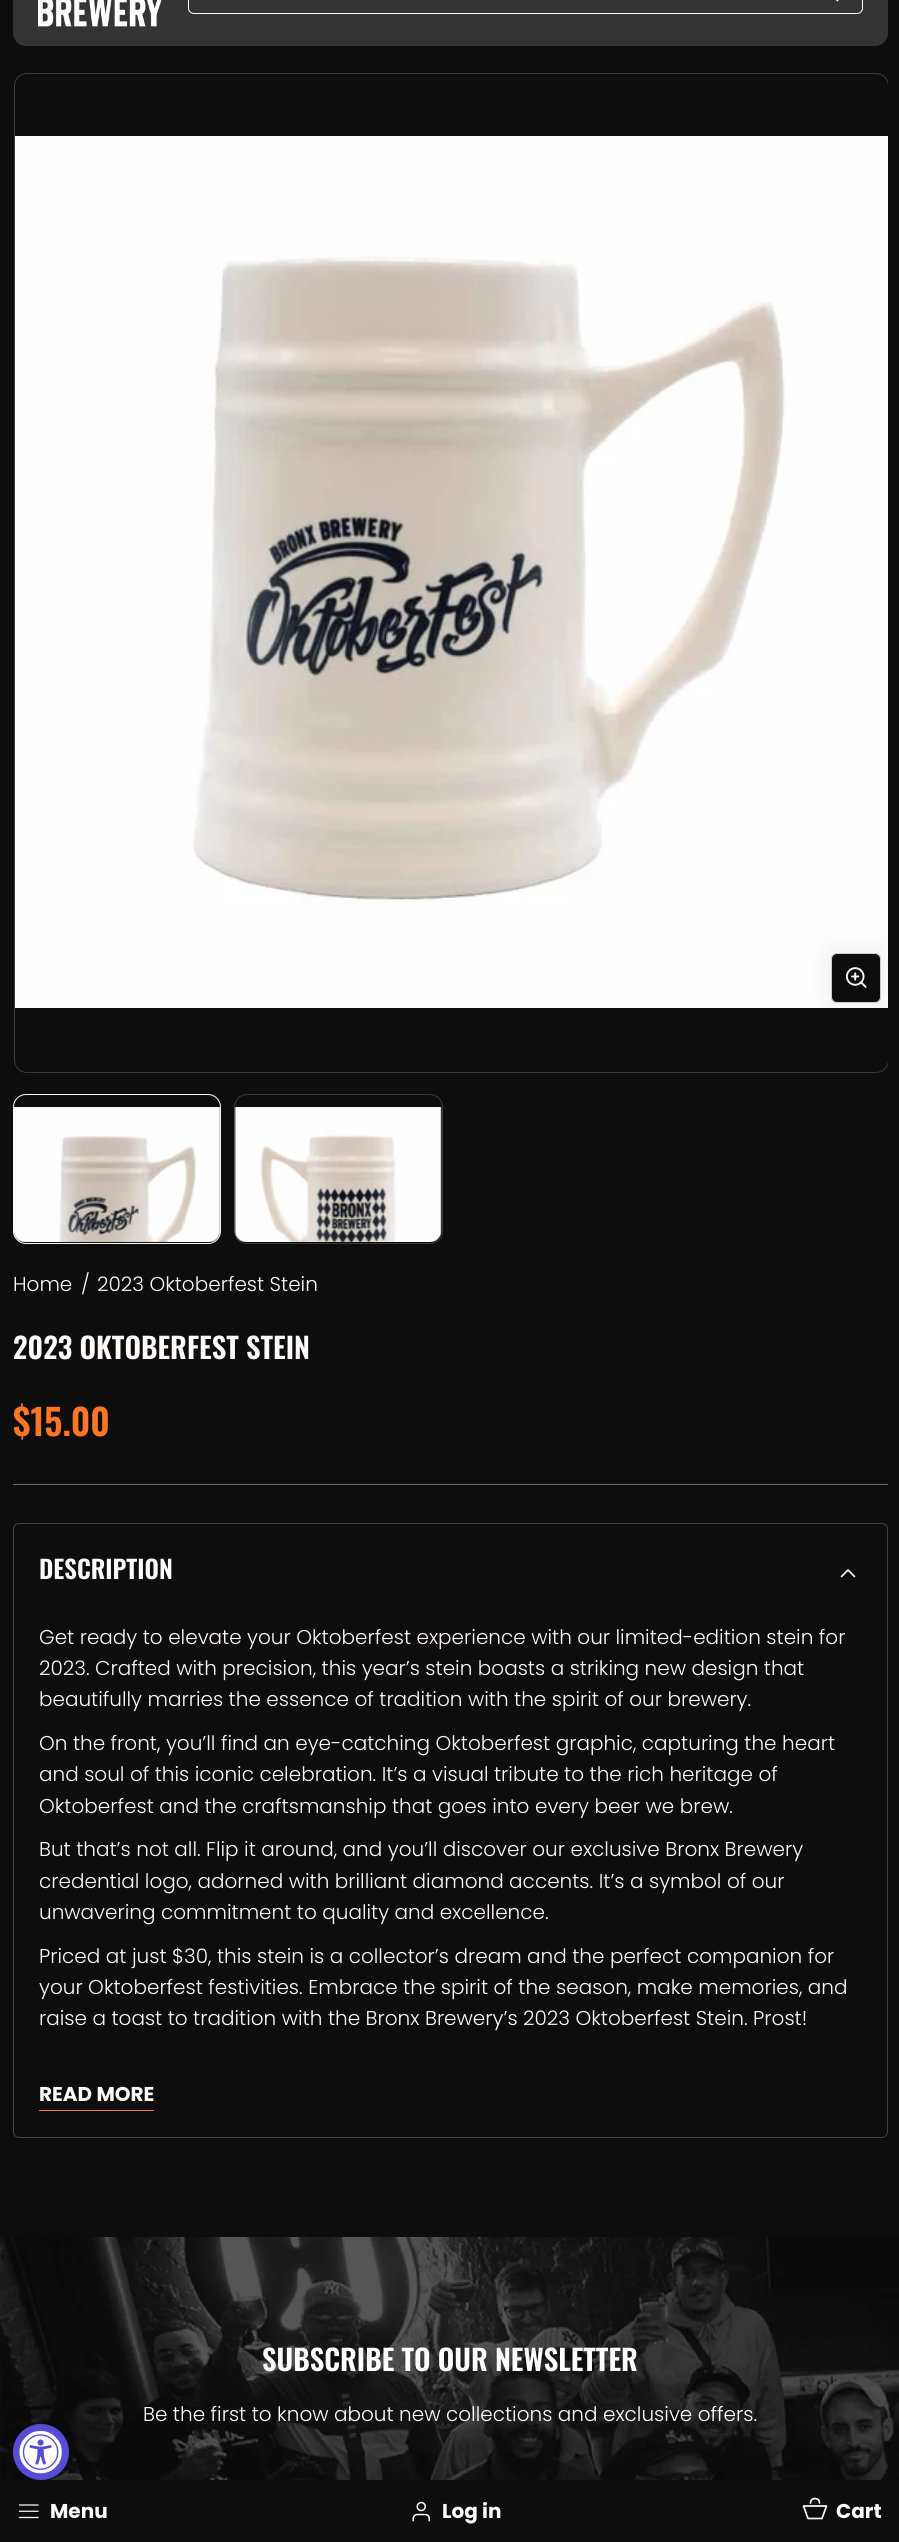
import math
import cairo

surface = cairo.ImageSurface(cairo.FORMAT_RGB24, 899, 2542)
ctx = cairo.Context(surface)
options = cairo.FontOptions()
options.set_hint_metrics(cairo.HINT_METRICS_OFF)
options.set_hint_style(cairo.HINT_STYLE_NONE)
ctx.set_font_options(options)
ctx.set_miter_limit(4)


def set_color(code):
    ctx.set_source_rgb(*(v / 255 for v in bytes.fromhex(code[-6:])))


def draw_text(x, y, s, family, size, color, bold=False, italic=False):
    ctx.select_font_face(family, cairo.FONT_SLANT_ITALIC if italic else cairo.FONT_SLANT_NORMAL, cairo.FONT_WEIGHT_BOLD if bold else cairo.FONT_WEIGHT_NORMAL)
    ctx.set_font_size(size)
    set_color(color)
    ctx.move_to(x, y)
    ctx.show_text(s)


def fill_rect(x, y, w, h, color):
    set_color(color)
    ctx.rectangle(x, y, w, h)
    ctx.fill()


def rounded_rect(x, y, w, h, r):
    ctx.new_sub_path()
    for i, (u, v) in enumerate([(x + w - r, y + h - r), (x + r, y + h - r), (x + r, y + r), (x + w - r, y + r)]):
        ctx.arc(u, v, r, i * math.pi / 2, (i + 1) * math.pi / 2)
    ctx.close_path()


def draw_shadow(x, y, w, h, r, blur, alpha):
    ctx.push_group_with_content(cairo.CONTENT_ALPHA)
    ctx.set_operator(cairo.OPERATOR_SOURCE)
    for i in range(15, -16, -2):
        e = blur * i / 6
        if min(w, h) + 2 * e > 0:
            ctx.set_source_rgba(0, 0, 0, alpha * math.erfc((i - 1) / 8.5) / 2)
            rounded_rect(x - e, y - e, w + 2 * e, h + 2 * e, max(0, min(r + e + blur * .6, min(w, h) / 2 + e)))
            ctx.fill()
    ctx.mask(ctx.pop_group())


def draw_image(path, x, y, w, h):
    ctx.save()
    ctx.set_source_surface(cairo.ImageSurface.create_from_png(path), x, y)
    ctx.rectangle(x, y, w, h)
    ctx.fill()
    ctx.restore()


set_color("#0d0d0d")
ctx.paint()
ctx.save()
ctx.rectangle(13, 71, 875, 1003)
ctx.clip()
rounded_rect(14.5, 73.5, 874, 999, 12.5)
set_color("#393939")
ctx.set_line_width(1)
ctx.stroke()
ctx.restore()
draw_image("assets/img1.png", 15, 136, 873, 872)
ctx.save()
ctx.rectangle(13, 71, 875, 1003)
ctx.clip()
set_color("#000000")
draw_shadow(831, 953, 50, 50, 6, 14, 0.08)
ctx.restore()
set_color("#0d0d0d")
rounded_rect(831.5, 953.5, 49, 49, 5.5)
ctx.fill_preserve()
set_color("#cccccc")
ctx.set_line_width(1)
ctx.stroke()
draw_image("assets/img2.png", 845, 967, 22, 21)
rounded_rect(13.5, 1094.5, 207, 149, 12.5)
set_color("#ffffff")
ctx.stroke()
draw_image("assets/img3.png", 13, 1107, 207, 135)
rounded_rect(234.5, 1094.5, 208, 149, 12.5)
set_color("#393939")
ctx.stroke()
draw_image("assets/img4.png", 234, 1107, 208, 135)
draw_text(13, 1291, "Home", "Poppins Light", 20, "#fffbf8")
draw_text(81, 1291, "/", "Poppins Light", 20, "#fffbf8")
draw_text(97, 1291, "2023 Oktoberfest Stein", "Poppins Light", 20, "#fffbf8")
draw_text(13, 1359, "2023 OKTOBERFEST STEIN", "Oswald SemiBold", 28.75, "#fffbf8")
draw_text(13, 1436, "$15.00", "Oswald SemiBold", 36, "#ff7526")
fill_rect(13, 1484, 875, 1, "#6b6b6b")
rounded_rect(13.5, 1523.5, 874, 614, 5.5)
set_color("#424242")
ctx.stroke()
draw_text(39, 1579, "DESCRIPTION", "Oswald SemiBold", 25, "#fffbf8")
ctx.new_path()
ctx.move_to(854.5, 1576.5)
ctx.line_to(848, 1570)
ctx.line_to(841.5, 1576.5)
set_color("#ffffff")
ctx.set_line_width(1.6)
ctx.set_line_cap(cairo.LINE_CAP_ROUND)
ctx.set_line_join(cairo.LINE_JOIN_ROUND)
ctx.stroke()
draw_text(39, 1644, "Get ready to elevate your Oktoberfest experience with our limited-edition stein for", "Poppins Light", 20, "#fffbf8")
draw_text(39, 1675, "2023. Crafted with precision, this year’s stein boasts a striking new design that", "Poppins Light", 20, "#fffbf8")
draw_text(39, 1706, "beautifully marries the essence of tradition with the spirit of our brewery.", "Poppins Light", 20, "#fffbf8")
draw_text(39, 1750, "On the front, you’ll find an eye-catching Oktoberfest graphic, capturing the heart", "Poppins Light", 20, "#fffbf8")
draw_text(39, 1781, "and soul of this iconic celebration. It’s a visual tribute to the rich heritage of", "Poppins Light", 20, "#fffbf8")
draw_text(39, 1813, "Oktoberfest and the craftsmanship that goes into every beer we brew.", "Poppins Light", 20, "#fffbf8")
draw_text(39, 1856, "But that’s not all. Flip it around, and you’ll discover our exclusive Bronx Brewery", "Poppins Light", 20, "#fffbf8")
draw_text(39, 1888, "credential logo, adorned with brilliant diamond accents. It’s a symbol of our", "Poppins Light", 20, "#fffbf8")
draw_text(39, 1919, "unwavering commitment to quality and excellence.", "Poppins Light", 20, "#fffbf8")
draw_text(39, 1963, "Priced at just $30, this stein is a collector’s dream and the perfect companion for", "Poppins Light", 20, "#fffbf8")
draw_text(39, 1994, "your Oktoberfest festivities. Embrace the spirit of the season, make memories, and", "Poppins Light", 20, "#fffbf8")
draw_text(39, 2025, "raise a toast to tradition with the Bronx Brewery’s 2023 Oktoberfest Stein. Prost!", "Poppins Light", 20, "#fffbf8")
fill_rect(39, 2110, 115, 1, "#ff7526")
draw_text(39, 2101, "READ MORE", "Poppins", 20, "#fffbf8", bold=True)
draw_image("assets/img5.png", 0, 2237, 899, 243)
draw_text(262, 2371, "SUBSCRIBE TO OUR NEWSLETTER", "Oswald SemiBold", 28.75, "#ffffff")
draw_text(143, 2421, "Be the first to know about new collections and exclusive offers.", "Poppins Light", 20, "#ffffff")
set_color("#574cd5")
ctx.new_path()
ctx.arc(41, 2452, 28, 0, 2 * math.pi)
ctx.fill()
draw_image("assets/img6.png", 19, 2430, 43, 44)
set_color("#343434")
rounded_rect(13, -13, 875, 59, 13)
ctx.fill()
draw_image("assets/img7.png", 38, 0, 124, 27)
rounded_rect(188.5, -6.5, 674, 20, 5.5)
set_color("#ffffff")
ctx.set_line_width(1)
ctx.set_line_cap(cairo.LINE_CAP_BUTT)
ctx.set_line_join(cairo.LINE_JOIN_MITER)
ctx.stroke()
ctx.new_path()
ctx.move_to(837.5, 0.5)
ctx.line_to(831.5, -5)
ctx.set_line_width(1.6)
ctx.set_line_cap(cairo.LINE_CAP_SQUARE)
ctx.set_line_join(cairo.LINE_JOIN_ROUND)
ctx.stroke()
draw_image("assets/img8.png", 18, 2504, 21, 15)
draw_text(50, 2518, "Menu", "Poppins", 20, "#ffffff", bold=True)
draw_image("assets/img9.png", 412, 2501, 18, 21)
draw_text(442, 2518, "Log in", "Poppins", 20, "#ffffff", bold=True)
ctx.new_path()
ctx.move_to(819.5, 2503)
ctx.curve_to(819.5, 2497, 810.5, 2497, 810.5, 2503)
ctx.move_to(803.5, 2506)
ctx.line_to(826.5, 2506)
ctx.line_to(822, 2518.5)
ctx.line_to(808, 2518.5)
ctx.close_path()
set_color("#fffbf8")
ctx.set_line_width(1.7)
ctx.set_line_cap(cairo.LINE_CAP_ROUND)
ctx.stroke()
draw_text(836, 2518, "Cart", "Poppins", 20, "#ffffff", bold=True)
surface.write_to_png("output.png")
